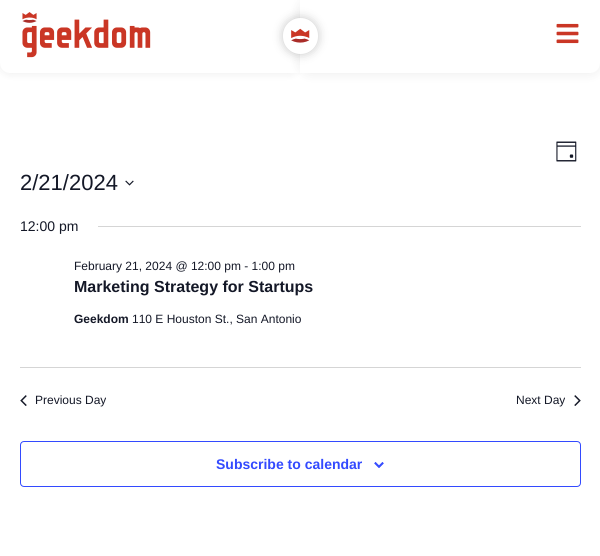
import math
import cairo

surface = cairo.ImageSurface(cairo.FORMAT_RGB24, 600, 556)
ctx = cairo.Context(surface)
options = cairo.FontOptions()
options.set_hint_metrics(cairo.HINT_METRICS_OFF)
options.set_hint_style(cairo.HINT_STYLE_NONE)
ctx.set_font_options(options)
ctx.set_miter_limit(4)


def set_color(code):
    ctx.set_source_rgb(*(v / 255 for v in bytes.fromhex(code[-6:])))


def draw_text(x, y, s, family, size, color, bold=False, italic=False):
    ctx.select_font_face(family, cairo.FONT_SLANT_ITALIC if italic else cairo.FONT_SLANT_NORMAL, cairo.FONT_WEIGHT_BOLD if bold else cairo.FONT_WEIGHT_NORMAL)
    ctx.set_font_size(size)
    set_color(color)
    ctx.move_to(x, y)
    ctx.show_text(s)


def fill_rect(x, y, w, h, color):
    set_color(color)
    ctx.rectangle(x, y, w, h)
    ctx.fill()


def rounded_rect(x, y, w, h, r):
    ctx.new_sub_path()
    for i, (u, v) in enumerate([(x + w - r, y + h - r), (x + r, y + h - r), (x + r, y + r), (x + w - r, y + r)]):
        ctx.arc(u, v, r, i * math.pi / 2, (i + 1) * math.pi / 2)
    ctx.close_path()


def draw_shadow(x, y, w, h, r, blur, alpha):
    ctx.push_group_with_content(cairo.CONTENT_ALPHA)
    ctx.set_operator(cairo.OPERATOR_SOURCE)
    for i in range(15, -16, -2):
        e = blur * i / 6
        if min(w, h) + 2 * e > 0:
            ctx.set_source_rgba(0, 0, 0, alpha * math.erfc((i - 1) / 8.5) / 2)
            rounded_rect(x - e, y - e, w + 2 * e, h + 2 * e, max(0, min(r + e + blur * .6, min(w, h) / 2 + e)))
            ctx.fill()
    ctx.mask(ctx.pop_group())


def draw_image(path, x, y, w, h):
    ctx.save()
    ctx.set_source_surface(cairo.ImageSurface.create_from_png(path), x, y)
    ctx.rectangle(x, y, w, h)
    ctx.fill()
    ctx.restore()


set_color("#ffffff")
ctx.paint()
set_color("#000000")
draw_shadow(0, 0, 300, 73, 10, 5, 0.08)
set_color("#ffffff")
ctx.new_path()
ctx.move_to(0, 0)
ctx.line_to(300, 0)
ctx.line_to(300, 73)
ctx.line_to(10, 73)
ctx.curve_to(4.5, 73, 0, 68.5, 0, 63)
ctx.close_path()
ctx.fill()
draw_image("assets/img1.png", 22, 12, 129, 46)
set_color("#000000")
draw_shadow(300, 0, 300, 73, 10, 6.5, 0.08)
set_color("#ffffff")
ctx.new_path()
ctx.move_to(300, 0)
ctx.line_to(600, 0)
ctx.line_to(600, 63)
ctx.curve_to(600, 68.5, 595.5, 73, 590, 73)
ctx.line_to(300, 73)
ctx.close_path()
ctx.fill()
set_color("#000000")
draw_shadow(283, 18, 35, 36, 17.5, 5, 0.22)
set_color("#ffffff")
rounded_rect(283, 18, 35, 36, 17.5)
ctx.fill()
draw_image("assets/img2.png", 291, 28, 19, 15)
draw_image("assets/img3.png", 556, 23, 23, 21)
draw_image("assets/img4.png", 556, 141, 21, 21)
draw_text(20, 190, "2/21/2024", "Liberation Sans", 22, "#141827")
draw_image("assets/img5.png", 125, 180, 9, 6)
draw_text(20, 231, "12:00 pm", "Liberation Sans", 14, "#141827")
fill_rect(98, 226, 483, 1, "#d5d5d5")
draw_text(74, 270, "February 21, 2024 @ 12:00 pm - 1:00 pm", "Liberation Sans", 12, "#141827")
draw_text(74, 292, "Marketing Strategy for Startups", "Liberation Sans", 16, "#141827", bold=True)
draw_text(74, 323, "Geekdom", "Liberation Sans", 12, "#141827", bold=True)
draw_text(132, 323, "110 E Houston St., San Antonio", "Liberation Sans", 12, "#141827")
fill_rect(20, 367, 561, 1, "#d5d5d5")
draw_image("assets/img6.png", 20, 395, 7, 11)
draw_text(35, 404, "Previous Day", "Liberation Sans", 12, "#141827")
draw_text(516, 404, "Next Day", "Liberation Sans", 12, "#141827")
draw_image("assets/img7.png", 574, 395, 7, 11)
rounded_rect(20.5, 441.5, 560, 45, 3.5)
set_color("#334aff")
ctx.set_line_width(1)
ctx.stroke()
draw_text(216, 469, "Subscribe to calendar", "Liberation Sans", 14, "#334aff", bold=True)
draw_image("assets/img8.png", 374, 462, 10, 6)
surface.write_to_png("output.png")
